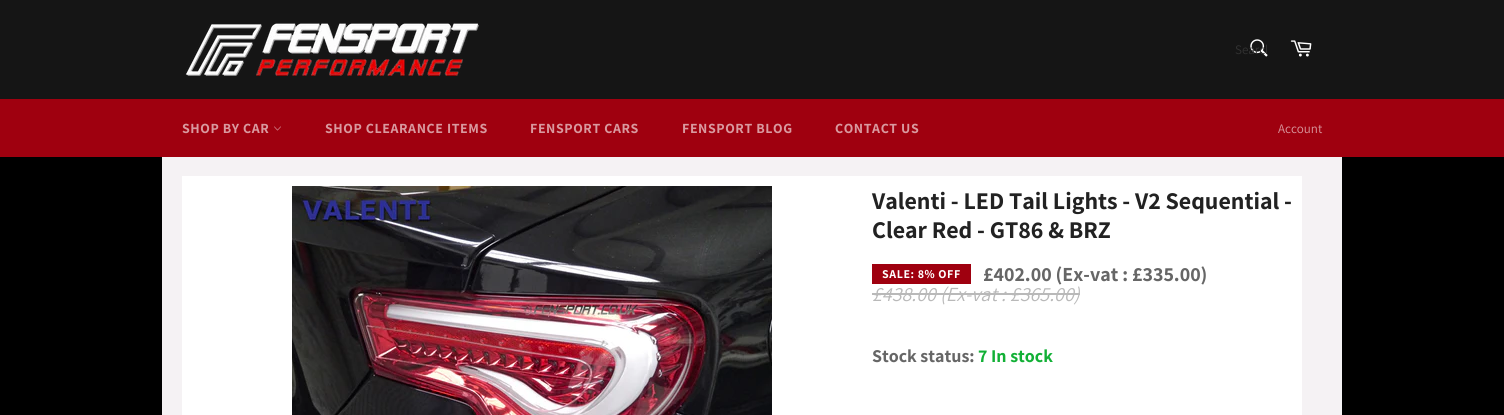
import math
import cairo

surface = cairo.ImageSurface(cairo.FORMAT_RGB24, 1504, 415)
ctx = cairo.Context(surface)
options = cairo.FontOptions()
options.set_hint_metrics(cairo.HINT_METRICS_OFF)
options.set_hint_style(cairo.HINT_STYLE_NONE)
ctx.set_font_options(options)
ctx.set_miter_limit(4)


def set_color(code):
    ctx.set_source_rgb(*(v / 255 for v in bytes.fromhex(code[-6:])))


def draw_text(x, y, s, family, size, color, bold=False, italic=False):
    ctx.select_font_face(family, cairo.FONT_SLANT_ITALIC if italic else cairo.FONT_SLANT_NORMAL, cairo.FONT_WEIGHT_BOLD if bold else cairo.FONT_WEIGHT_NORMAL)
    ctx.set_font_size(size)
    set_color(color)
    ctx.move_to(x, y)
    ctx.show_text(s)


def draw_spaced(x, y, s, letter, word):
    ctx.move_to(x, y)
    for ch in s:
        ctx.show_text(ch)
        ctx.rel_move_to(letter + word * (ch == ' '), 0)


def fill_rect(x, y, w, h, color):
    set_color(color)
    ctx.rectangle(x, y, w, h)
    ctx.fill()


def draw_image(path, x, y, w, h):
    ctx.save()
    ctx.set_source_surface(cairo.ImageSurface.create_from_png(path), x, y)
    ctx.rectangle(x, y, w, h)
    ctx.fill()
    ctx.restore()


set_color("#000000")
ctx.paint()
fill_rect(0, 0, 1504, 99, "#151515")
draw_image("assets/img1.png", 185, 23, 294, 53)
draw_image("assets/img2.png", 1250, 39, 18, 18)
ctx.save()
ctx.rectangle(1235, 41, 32, 17)
ctx.clip()
draw_text(1235, 54, "Search", "Assistant", 13, "#323232")
ctx.restore()
draw_image("assets/img3.png", 1290, 40, 22, 17)
fill_rect(0, 99, 1504, 58, "#9f000f")
ctx.select_font_face("Assistant", cairo.FONT_SLANT_NORMAL, cairo.FONT_WEIGHT_BOLD)
ctx.set_font_size(14)
set_color("#d9999f")
draw_spaced(182, 133, "SHOP BY CAR", 0.6, 0)
draw_image("assets/img4.png", 274, 126, 7, 5)
draw_spaced(325, 133, "SHOP CLEARANCE ITEMS", 0.6, 0)
draw_spaced(530, 133, "FENSPORT CARS", 0.6, 0)
draw_spaced(682, 133, "FENSPORT BLOG", 0.6, 0)
draw_spaced(835, 133, "CONTACT US", 0.6, 0)
draw_text(1278, 133, "Account", "Assistant", 13, "#d9999f")
fill_rect(162, 157, 1180, 258, "#f5f2f4")
fill_rect(182, 176, 1120, 239, "#ffffff")
draw_image("assets/img5.png", 292, 186, 480, 229)
draw_text(872, 209, "Valenti - LED Tail Lights - V2 Sequential -", "Assistant", 24, "#222222", bold=True)
draw_text(872, 238, "Clear Red - GT86 & BRZ", "Assistant", 24, "#222222", bold=True)
fill_rect(872, 264, 99, 20, "#9f000f")
ctx.set_font_size(12)
set_color("#ffffff")
draw_spaced(882, 278, "SALE: 8% OFF", 0.6, 0)
draw_text(983, 281, "£402.00 (Ex-vat : £335.00)", "Assistant", 20, "#666666", bold=True)
draw_text(872, 301, "£438.00 (Ex-vat : £365.00)", "Assistant", 20, "#b9b9b9", italic=True)
fill_rect(872, 293, 208, 2, "#b9b9b9")
draw_text(872, 362, "Stock status:", "Assistant", 18, "#666666", bold=True)
draw_text(978, 362, "7 In stock", "Assistant", 18, "#12b036", bold=True)
surface.write_to_png("output.png")
